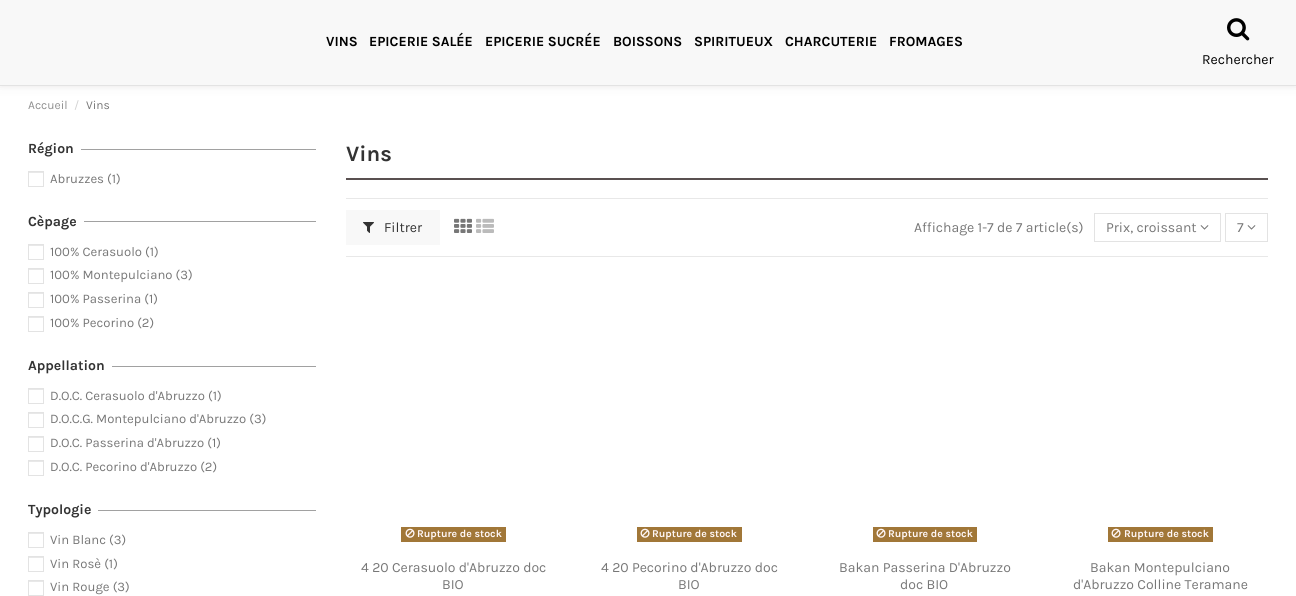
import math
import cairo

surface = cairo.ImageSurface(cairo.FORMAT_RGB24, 1296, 596)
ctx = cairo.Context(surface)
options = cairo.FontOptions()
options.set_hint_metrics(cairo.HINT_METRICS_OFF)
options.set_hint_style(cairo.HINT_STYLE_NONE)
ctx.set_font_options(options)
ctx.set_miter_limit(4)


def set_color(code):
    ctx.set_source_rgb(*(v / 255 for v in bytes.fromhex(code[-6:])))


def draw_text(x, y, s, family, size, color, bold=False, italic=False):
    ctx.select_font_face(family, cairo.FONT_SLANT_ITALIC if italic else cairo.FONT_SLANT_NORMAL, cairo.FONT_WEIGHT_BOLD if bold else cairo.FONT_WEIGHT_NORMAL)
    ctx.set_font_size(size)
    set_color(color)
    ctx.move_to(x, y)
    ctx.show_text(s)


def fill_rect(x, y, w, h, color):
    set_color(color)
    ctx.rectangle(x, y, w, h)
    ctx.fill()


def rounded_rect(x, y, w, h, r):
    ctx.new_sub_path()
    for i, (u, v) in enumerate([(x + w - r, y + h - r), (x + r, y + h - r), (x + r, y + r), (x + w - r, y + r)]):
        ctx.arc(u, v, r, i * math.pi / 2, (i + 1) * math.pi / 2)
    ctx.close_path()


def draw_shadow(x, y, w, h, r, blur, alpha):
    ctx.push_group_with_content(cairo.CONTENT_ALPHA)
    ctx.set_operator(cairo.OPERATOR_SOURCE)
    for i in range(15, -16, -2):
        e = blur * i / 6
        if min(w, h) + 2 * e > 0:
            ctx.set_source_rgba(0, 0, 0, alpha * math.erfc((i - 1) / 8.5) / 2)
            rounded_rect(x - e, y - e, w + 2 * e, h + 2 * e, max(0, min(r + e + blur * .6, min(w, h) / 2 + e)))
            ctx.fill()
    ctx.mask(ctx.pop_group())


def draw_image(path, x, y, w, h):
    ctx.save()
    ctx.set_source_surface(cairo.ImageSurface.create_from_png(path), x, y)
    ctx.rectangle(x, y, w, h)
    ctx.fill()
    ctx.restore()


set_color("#ffffff")
ctx.paint()
set_color("#3d3939")
draw_shadow(0, -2, 1296, 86, 0, 5.5, 0.17)
fill_rect(0, 0, 1296, 85, "#f8f8f8")
fill_rect(0, 85, 1296, 1, "#e3e3e3")
draw_text(326, 46, "VINS", "Karla", 14, "#000000", bold=True)
draw_text(369, 46, "EPICERIE SALÉE", "Karla", 14, "#000000", bold=True)
draw_text(485, 46, "EPICERIE SUCRÉE", "Karla", 14, "#000000", bold=True)
draw_text(613, 46, "BOISSONS", "Karla", 14, "#000000", bold=True)
draw_text(694, 46, "SPIRITUEUX", "Karla", 14, "#000000", bold=True)
draw_text(785, 46, "CHARCUTERIE", "Karla", 14, "#000000", bold=True)
draw_text(889, 46, "FROMAGES", "Karla", 14, "#000000", bold=True)
draw_image("assets/img1.png", 1227, 18, 23, 23)
draw_text(1202, 64, "Rechercher", "Karla", 14, "#000000")
draw_text(28, 109, "Accueil", "Karla", 12, "#8f8f8f")
draw_text(74, 109, "/", "Karla", 12, "#d2d2d2")
draw_text(86, 109, "Vins", "Karla", 12, "#777777")
draw_text(28, 153, "Région", "Karla", 14, "#333333", bold=True)
fill_rect(81, 149, 235, 1, "#a1a1a1")
fill_rect(29, 172, 14, 1, "#e8e8e8")
ctx.rectangle(28.5, 171.5, 15, 15)
set_color("#e3e3e3")
ctx.set_line_width(1)
ctx.stroke()
draw_text(50, 183, "Abruzzes (1)", "Karla", 13.1, "#777777")
draw_text(28, 226, "Cèpage", "Karla", 14, "#333333", bold=True)
fill_rect(84, 221, 232, 1, "#a1a1a1")
fill_rect(29, 245, 14, 1, "#e8e8e8")
ctx.rectangle(28.5, 244.5, 15, 15)
set_color("#e3e3e3")
ctx.stroke()
draw_text(50, 256, "100% Cerasuolo (1)", "Karla", 13.1, "#777777")
fill_rect(29, 269, 14, 1, "#e8e8e8")
ctx.rectangle(28.5, 268.5, 15, 15)
set_color("#e3e3e3")
ctx.stroke()
draw_text(50, 279, "100% Montepulciano (3)", "Karla", 13.1, "#777777")
fill_rect(29, 293, 14, 1, "#e8e8e8")
ctx.rectangle(28.5, 292.5, 15, 15)
set_color("#e3e3e3")
ctx.stroke()
draw_text(50, 303, "100% Passerina (1)", "Karla", 13.1, "#777777")
fill_rect(29, 317, 14, 1, "#e8e8e8")
ctx.rectangle(28.5, 316.5, 15, 15)
set_color("#e3e3e3")
ctx.stroke()
draw_text(50, 327, "100% Pecorino (2)", "Karla", 13.1, "#777777")
draw_text(28, 370, "Appellation", "Karla", 14, "#333333", bold=True)
fill_rect(112, 366, 204, 1, "#a1a1a1")
fill_rect(29, 389, 14, 1, "#e8e8e8")
ctx.rectangle(28.5, 388.5, 15, 15)
set_color("#e3e3e3")
ctx.stroke()
draw_text(50, 400, "D.O.C. Cerasuolo d'Abruzzo (1)", "Karla", 13.1, "#777777")
fill_rect(29, 413, 14, 1, "#e8e8e8")
ctx.rectangle(28.5, 412.5, 15, 15)
set_color("#e3e3e3")
ctx.stroke()
draw_text(50, 423, "D.O.C.G. Montepulciano d'Abruzzo (3)", "Karla", 13.1, "#777777")
fill_rect(29, 437, 14, 1, "#e8e8e8")
ctx.rectangle(28.5, 436.5, 15, 15)
set_color("#e3e3e3")
ctx.stroke()
draw_text(50, 447, "D.O.C. Passerina d'Abruzzo (1)", "Karla", 13.1, "#777777")
fill_rect(29, 461, 14, 1, "#e8e8e8")
ctx.rectangle(28.5, 460.5, 15, 15)
set_color("#e3e3e3")
ctx.stroke()
draw_text(50, 471, "D.O.C. Pecorino d'Abruzzo (2)", "Karla", 13.1, "#777777")
draw_text(28, 514, "Typologie", "Karla", 14, "#333333", bold=True)
fill_rect(98, 510, 218, 1, "#a1a1a1")
fill_rect(29, 533, 14, 1, "#e8e8e8")
ctx.rectangle(28.5, 532.5, 15, 15)
set_color("#e3e3e3")
ctx.stroke()
draw_text(50, 544, "Vin Blanc (3)", "Karla", 13.1, "#777777")
fill_rect(29, 557, 14, 1, "#e8e8e8")
ctx.rectangle(28.5, 556.5, 15, 15)
set_color("#e3e3e3")
ctx.stroke()
draw_text(50, 568, "Vin Rosè (1)", "Karla", 13.1, "#777777")
fill_rect(29, 581, 14, 1, "#e8e8e8")
ctx.rectangle(28.5, 580.5, 15, 15)
set_color("#e3e3e3")
ctx.stroke()
draw_text(50, 591, "Vin Rouge (3)", "Karla", 13.1, "#777777")
fill_rect(346, 178, 922, 2, "#595050")
draw_text(346, 161, "Vins", "Karla", 22, "#333333", bold=True)
fill_rect(346, 198, 922, 1, "#e8e8e8")
fill_rect(346, 256, 922, 1, "#e8e8e8")
fill_rect(346, 210, 94, 35, "#f8f8f8")
draw_image("assets/img2.png", 363, 222, 11, 11)
draw_text(384, 232, "Filtrer", "Karla", 14, "#333333")
draw_image("assets/img3.png", 454, 218, 18, 15)
draw_image("assets/img4.png", 476, 218, 18, 15)
draw_text(914, 232, "Affichage 1-7 de 7 article(s)", "Karla", 14, "#777777")
ctx.rectangle(1094.5, 213.5, 126, 28)
set_color("#e3e3e3")
ctx.stroke()
draw_text(1106, 232, "Prix, croissant", "Karla", 14, "#777777")
draw_image("assets/img5.png", 1200, 225, 9, 5)
ctx.rectangle(1225.5, 213.5, 42, 28)
set_color("#e3e3e3")
ctx.stroke()
draw_text(1237, 232, "7", "Karla", 14, "#777777")
draw_image("assets/img5.png", 1247, 225, 9, 5)
fill_rect(401, 527, 105, 15, "#a17738")
draw_image("assets/img6.png", 405, 528, 10, 10)
draw_text(417, 537, "Rupture de stock", "Karla", 10.5, "#fff7f7", bold=True)
draw_text(361, 572, "4 20 Cerasuolo d'Abruzzo doc", "Karla", 14, "#777777")
draw_text(442, 589, "BIO", "Karla", 14, "#777777")
fill_rect(637, 527, 105, 15, "#a17738")
draw_image("assets/img6.png", 640, 528, 10, 10)
draw_text(652, 537, "Rupture de stock", "Karla", 10.5, "#fff7f7", bold=True)
draw_text(601, 572, "4 20 Pecorino d'Abruzzo doc", "Karla", 14, "#777777")
draw_text(678, 589, "BIO", "Karla", 14, "#777777")
fill_rect(873, 527, 104, 15, "#a17738")
draw_image("assets/img6.png", 876, 528, 10, 10)
draw_text(888, 537, "Rupture de stock", "Karla", 10.5, "#fff7f7", bold=True)
draw_text(839, 572, "Bakan Passerina D'Abruzzo", "Karla", 14, "#777777")
draw_text(900, 589, "doc BIO", "Karla", 14, "#777777")
fill_rect(1108, 527, 105, 15, "#a17738")
draw_image("assets/img6.png", 1111, 528, 10, 10)
draw_text(1124, 537, "Rupture de stock", "Karla", 10.5, "#fff7f7", bold=True)
draw_text(1090, 572, "Bakan Montepulciano", "Karla", 14, "#777777")
draw_text(1073, 589, "d'Abruzzo Colline Teramane", "Karla", 14, "#777777")
surface.write_to_png("output.png")
